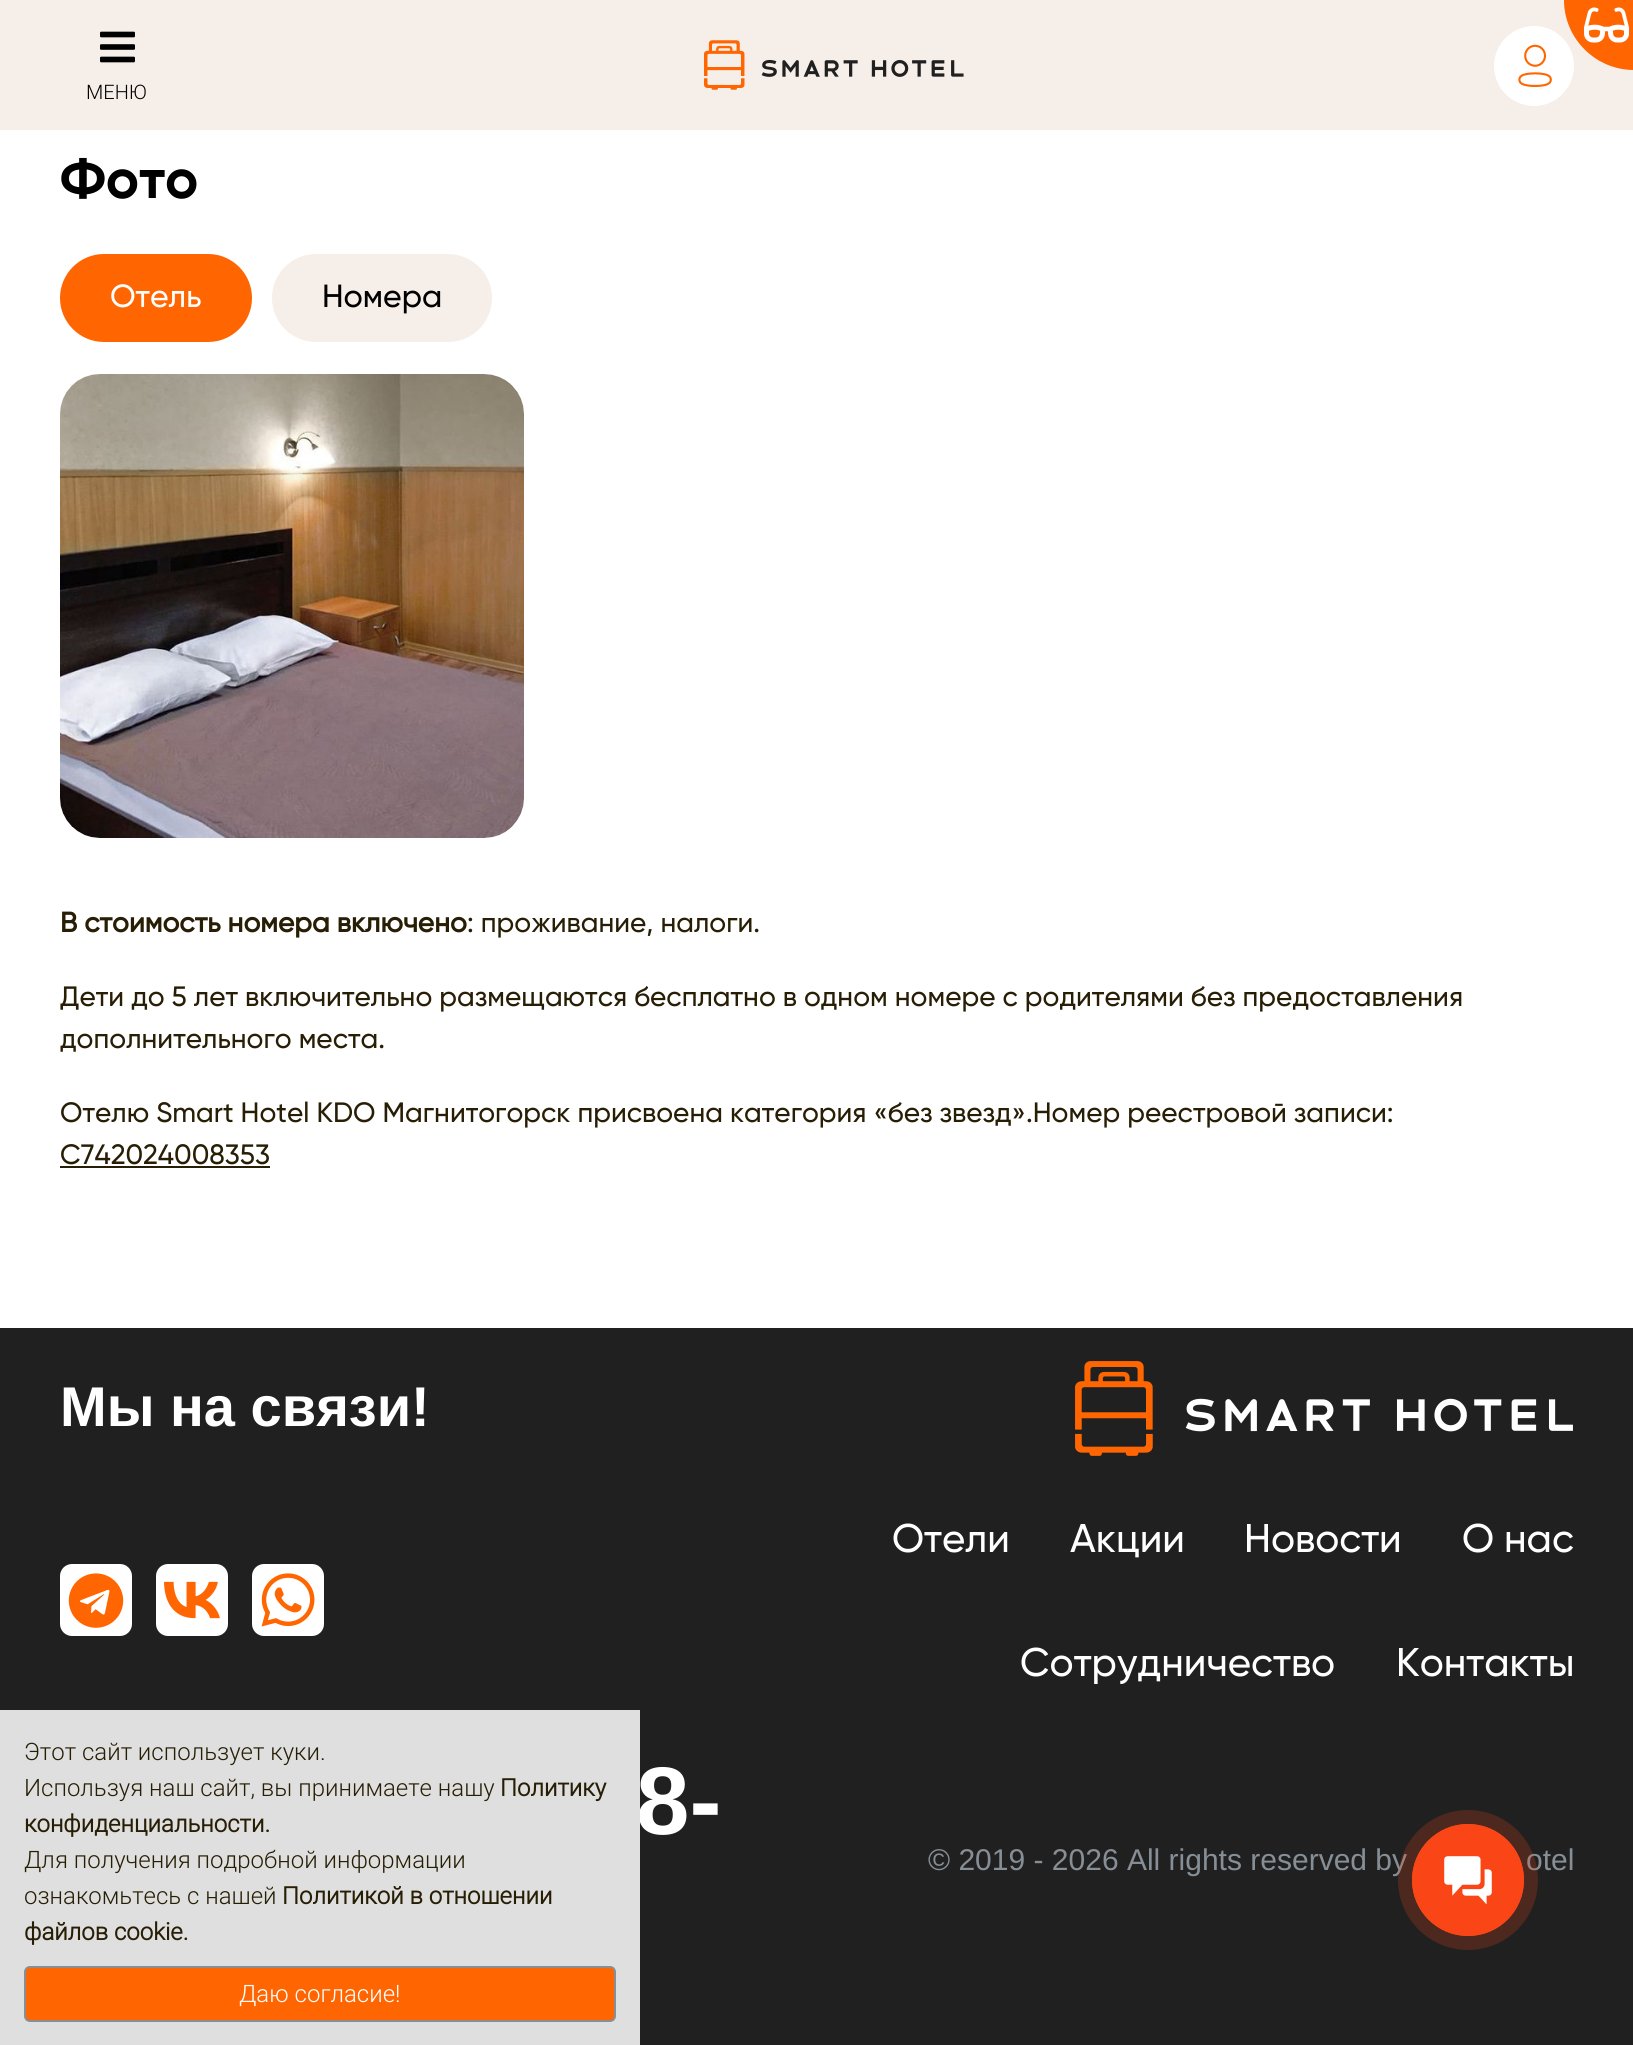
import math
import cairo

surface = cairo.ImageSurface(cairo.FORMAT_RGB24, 1633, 2045)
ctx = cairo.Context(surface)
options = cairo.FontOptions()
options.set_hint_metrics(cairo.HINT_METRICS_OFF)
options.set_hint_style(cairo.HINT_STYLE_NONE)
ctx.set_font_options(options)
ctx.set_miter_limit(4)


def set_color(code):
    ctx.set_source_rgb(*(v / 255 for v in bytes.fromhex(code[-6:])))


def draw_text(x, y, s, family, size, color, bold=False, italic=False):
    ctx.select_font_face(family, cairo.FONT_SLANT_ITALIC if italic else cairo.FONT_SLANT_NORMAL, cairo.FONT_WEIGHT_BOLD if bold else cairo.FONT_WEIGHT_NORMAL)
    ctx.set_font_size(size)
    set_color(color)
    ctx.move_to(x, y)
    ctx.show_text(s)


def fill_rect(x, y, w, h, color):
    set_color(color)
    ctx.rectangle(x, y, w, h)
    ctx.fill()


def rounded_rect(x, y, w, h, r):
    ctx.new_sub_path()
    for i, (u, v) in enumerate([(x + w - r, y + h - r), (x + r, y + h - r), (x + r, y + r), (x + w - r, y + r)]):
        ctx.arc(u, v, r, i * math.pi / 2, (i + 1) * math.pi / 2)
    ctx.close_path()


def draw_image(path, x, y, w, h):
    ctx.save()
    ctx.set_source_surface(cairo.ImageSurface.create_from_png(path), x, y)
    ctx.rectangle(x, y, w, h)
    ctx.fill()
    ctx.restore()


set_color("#ffffff")
ctx.paint()
fill_rect(0, 0, 1633, 130, "#f6eee9")
set_color("#ffffff")
ctx.arc(1534, 66, 40, 0, 2 * math.pi)
ctx.fill()
set_color("#ff6500")
ctx.new_path()
ctx.move_to(1564, 0)
ctx.line_to(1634, 0)
ctx.line_to(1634, 70)
ctx.curve_to(1595.5, 70, 1564, 38.5, 1564, 0)
ctx.close_path()
ctx.fill()
draw_image("assets/img1.png", 1584, 7, 45, 36)
draw_image("assets/img2.png", 704, 40, 260, 50)
draw_image("assets/img3.png", 1518, 44, 34, 43)
draw_image("assets/img4.png", 100, 31, 35, 32)
draw_text(86, 99, "МЕНЮ", "Roboto Light", 20, "#000000")
draw_text(60, 198, "Фото", "Gilroy", 56, "#000000", bold=True)
set_color("#ff6500")
rounded_rect(60, 254, 192, 88, 44)
ctx.fill()
draw_text(110, 307, "Отель", "Gilroy Medium", 32, "#ffffff")
set_color("#f6eee9")
rounded_rect(272, 254, 220, 88, 44)
ctx.fill()
draw_text(322, 307, "Номера", "Gilroy Medium", 32, "#000000")
draw_image("assets/img5.png", 60, 374, 464, 464)
draw_text(60, 932, "В стоимость номера включено", "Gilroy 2", 28, "#281e05", bold=True)
draw_text(467, 932, ": проживание, налоги.", "Gilroy Medium", 28, "#281e05")
draw_text(60, 1006, "Дети до 5 лет включительно размещаются бесплатно в одном номере с родителями без предоставления", "Gilroy Medium", 28, "#281e05")
draw_text(60, 1048, "дополнительного места.", "Gilroy Medium", 28, "#281e05")
draw_text(60, 1122, "Отелю Smart Hotel KDO Магнитогорск присвоена категория «без звезд».Номер реестровой записи:", "Gilroy Medium", 28, "#281e05")
draw_text(60, 1164, "С742024008353", "Gilroy Medium", 28, "#281e05")
fill_rect(60, 1166, 210, 2, "#281e05")
fill_rect(0, 1328, 1633, 717, "#202020")
draw_text(60, 1426, "Мы на связи!", "Liberation Sans", 56, "#ffffff", bold=True)
draw_image("assets/img6.png", 1075, 1361, 498, 95)
rounded_rect(60, 1564, 72, 72, 12)
ctx.fill()
draw_image("assets/img7.png", 68, 1573, 56, 55)
rounded_rect(156, 1564, 72, 72, 12)
ctx.fill()
draw_image("assets/img8.png", 164, 1581, 56, 38)
rounded_rect(252, 1564, 72, 72, 12)
ctx.fill()
draw_image("assets/img9.png", 261, 1573, 54, 54)
draw_text(892, 1552, "Отели", "Gilroy Medium", 40, "#ffffff")
draw_text(1070, 1552, "Акции", "Gilroy Medium", 40, "#ffffff")
draw_text(1244, 1552, "Новости", "Gilroy Medium", 40, "#ffffff")
draw_text(1462, 1552, "О нас", "Gilroy Medium", 40, "#ffffff")
draw_text(1020, 1676, "Сотрудничество", "Gilroy Medium", 40, "#ffffff")
draw_text(1396, 1676, "Контакты", "Gilroy Medium", 40, "#ffffff")
draw_text(636, 1834, "8-", "Liberation Sans", 96, "#ffffff", bold=True)
draw_text(928, 1870, "© 2019 - 2026 All rights reserved by", "Liberation Sans", 30, "#868e96")
draw_text(1526, 1870, "otel", "Liberation Sans", 30, "#868e96")
fill_rect(0, 1710, 640, 335, "#dedfde")
draw_text(24, 1760, "Этот сайт использует куки.", "Roboto Light", 24, "#281e05")
draw_text(24, 1796, "Используя наш сайт, вы принимаете нашу", "Roboto Light", 24, "#281e05")
draw_text(500, 1796, "Политику", "Roboto", 24, "#281e05", bold=True)
draw_text(24, 1832, "конфиденциальности.", "Roboto", 24, "#281e05", bold=True)
draw_text(24, 1868, "Для получения подробной информации", "Roboto Light", 24, "#281e05")
draw_text(24, 1904, "ознакомьтесь с нашей", "Roboto Light", 24, "#281e05")
draw_text(282, 1904, "Политикой в отношении", "Roboto", 24, "#281e05", bold=True)
draw_text(24, 1940, "файлов cookie.", "Roboto", 24, "#281e05", bold=True)
set_color("#ff6500")
rounded_rect(25, 1967, 590, 54, 5)
ctx.fill_preserve()
set_color("#868e96")
ctx.stroke()
draw_text(239, 2002, "Даю согласие!", "Roboto Light", 24, "#ffffff")
ctx.set_source_rgba(0.98, 0.275, 0.086, 0.2)
ctx.new_path()
ctx.arc(1468, 1880, 70, 0, 2 * math.pi)
ctx.fill()
ctx.arc(1468, 1880, 55, 0, 2 * math.pi)
set_color("#fa4616")
ctx.stroke()
ctx.arc(1468, 1880, 56, 0, 2 * math.pi)
ctx.fill()
draw_image("assets/img10.png", 1444, 1856, 48, 48)
surface.write_to_png("output.png")
